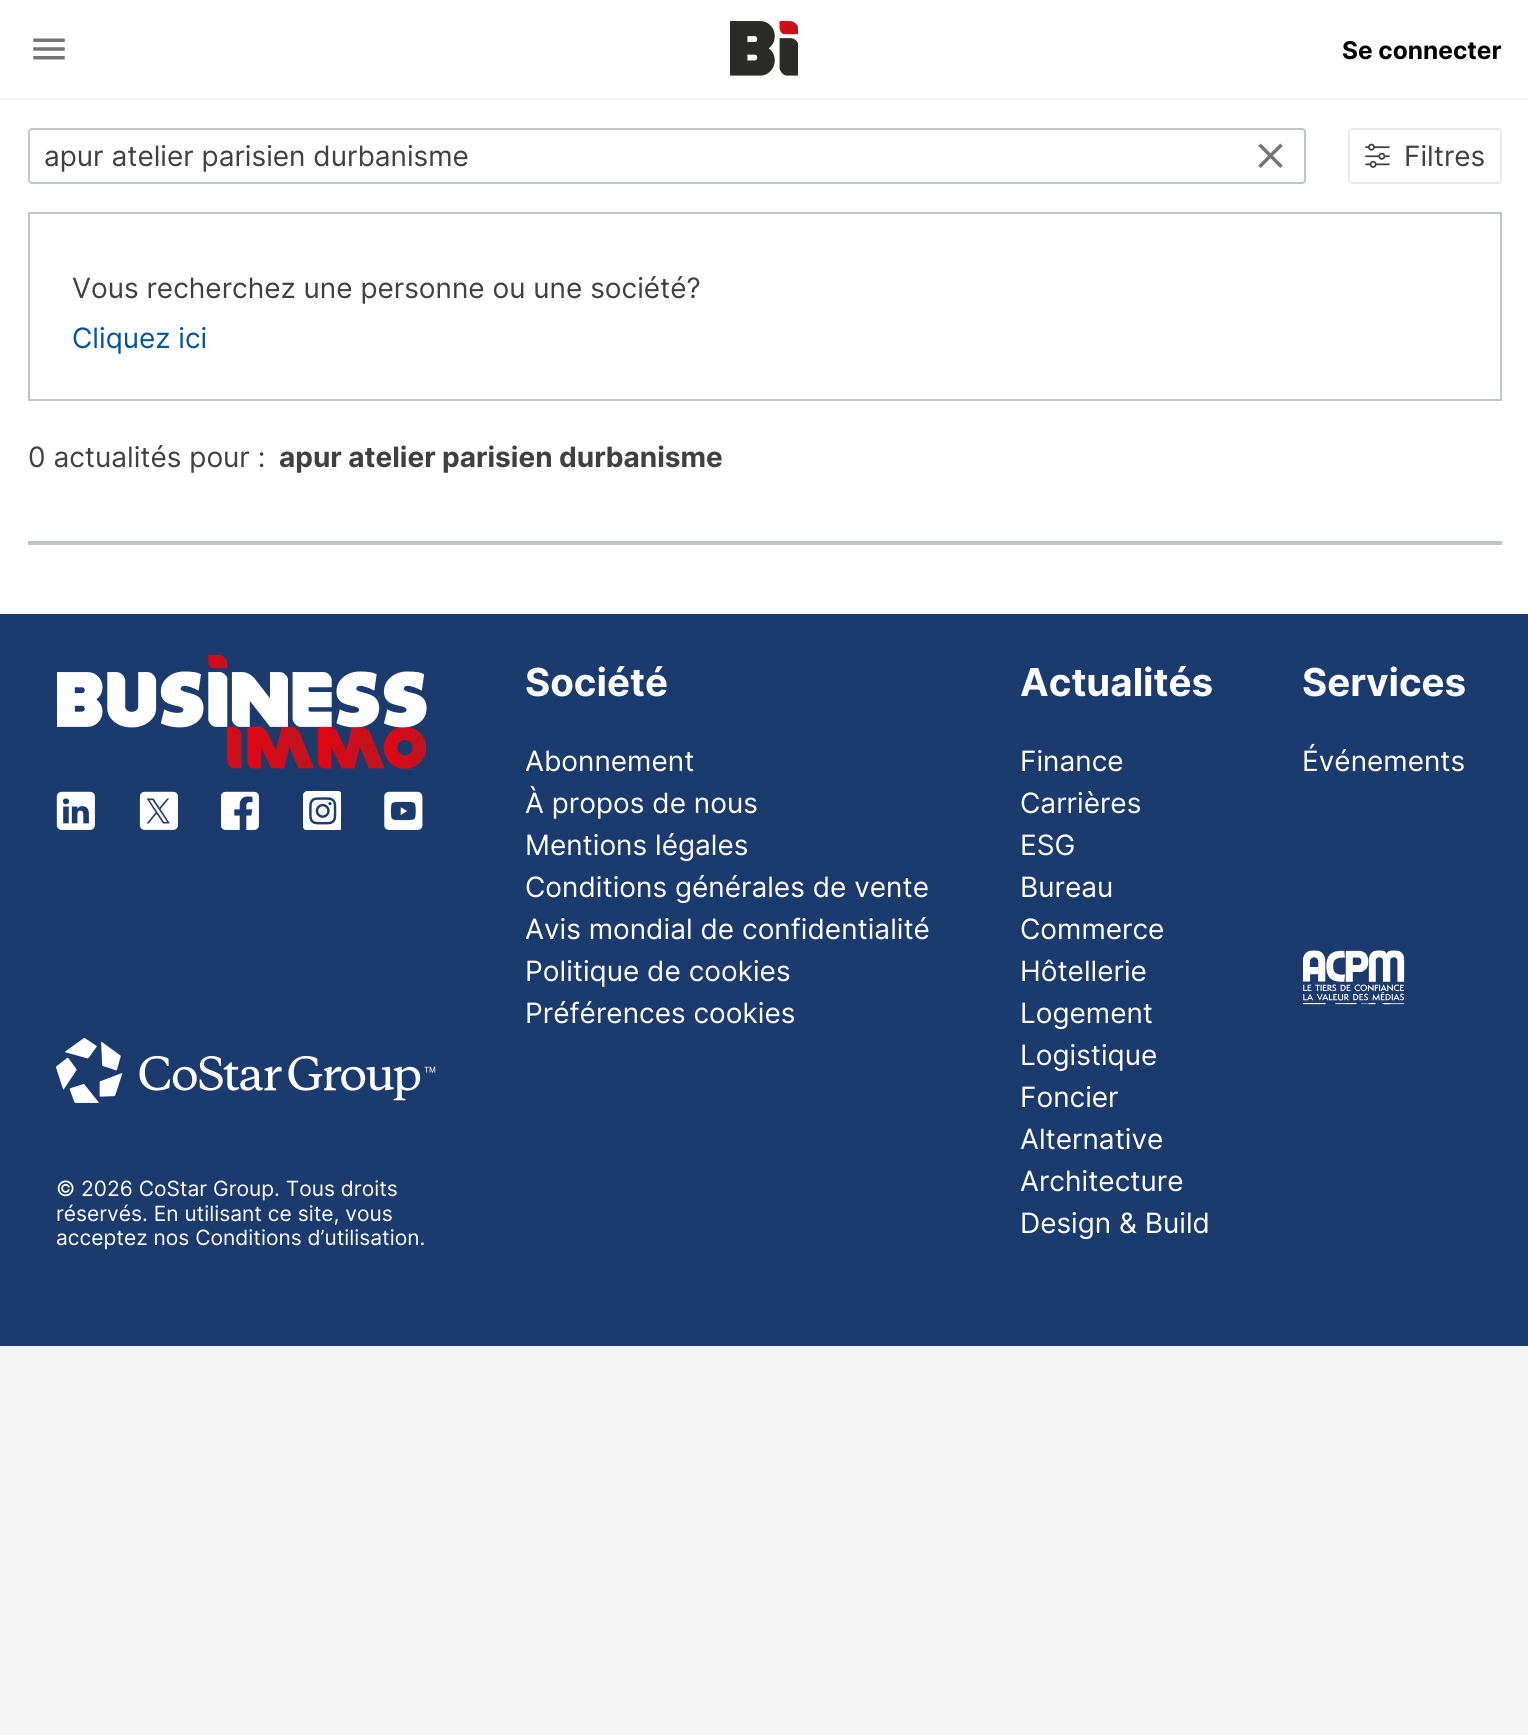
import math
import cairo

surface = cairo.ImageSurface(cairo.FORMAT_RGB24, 1528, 1735)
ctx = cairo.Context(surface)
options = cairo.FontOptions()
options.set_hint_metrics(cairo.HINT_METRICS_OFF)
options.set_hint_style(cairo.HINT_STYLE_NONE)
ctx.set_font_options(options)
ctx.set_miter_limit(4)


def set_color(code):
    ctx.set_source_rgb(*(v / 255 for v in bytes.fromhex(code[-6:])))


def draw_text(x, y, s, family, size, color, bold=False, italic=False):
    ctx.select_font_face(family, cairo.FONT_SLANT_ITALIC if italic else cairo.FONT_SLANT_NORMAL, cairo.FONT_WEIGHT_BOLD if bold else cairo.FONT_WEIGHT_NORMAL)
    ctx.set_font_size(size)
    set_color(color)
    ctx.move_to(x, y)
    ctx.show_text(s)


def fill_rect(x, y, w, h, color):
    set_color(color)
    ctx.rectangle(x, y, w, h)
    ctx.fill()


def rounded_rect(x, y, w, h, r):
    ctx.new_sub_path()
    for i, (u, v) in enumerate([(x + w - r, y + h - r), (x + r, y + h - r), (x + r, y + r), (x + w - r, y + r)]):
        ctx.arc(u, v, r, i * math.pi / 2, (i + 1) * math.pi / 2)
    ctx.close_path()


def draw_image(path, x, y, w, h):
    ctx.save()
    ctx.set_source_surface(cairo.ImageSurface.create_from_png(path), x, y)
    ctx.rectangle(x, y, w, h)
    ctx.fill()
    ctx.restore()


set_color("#f5f5f5")
ctx.paint()
fill_rect(0, 0, 1528, 98, "#ffffff")
draw_image("assets/img1.png", 33, 38, 32, 22)
draw_image("assets/img2.png", 730, 21, 68, 55)
draw_text(1342, 59, "Se connecter", "Inter", 24.5, "#000000", bold=True)
fill_rect(0, 100, 1528, 514, "#ffffff")
rounded_rect(29, 129, 1276, 54, 3)
set_color("#bfc4c8")
ctx.stroke()
draw_text(44, 166, "apur atelier parisien durbanisme", "Inter", 28, "#404040")
draw_image("assets/img3.png", 1258, 143, 25, 25)
rounded_rect(1349, 129, 152, 54, 3)
set_color("#eaeaea")
ctx.stroke()
draw_image("assets/img4.png", 1365, 143, 25, 25)
draw_text(1404, 166, "Filtres", "Inter", 28, "#404040")
ctx.rectangle(29, 213, 1472, 187)
set_color("#bfc4c8")
ctx.stroke()
draw_text(72, 298, "Vous recherchez une personne ou une société?", "Inter", 28, "#404040")
draw_text(72, 348, "Cliquez ici", "Inter", 28, "#0054a6")
draw_text(28, 467, "0 actualités pour :", "Inter", 28, "#404040")
draw_text(279, 467, "apur atelier parisien durbanisme", "Inter", 28, "#404040", bold=True)
fill_rect(28, 541, 1474, 4, "#bfc4c8")
fill_rect(0, 614, 1528, 732, "#1b3a6e")
draw_text(525, 696, "Société", "Inter", 38.5, "#ffffff", bold=True)
draw_text(525, 771, "Abonnement", "Inter", 28, "#ffffff")
draw_text(525, 813, "À propos de nous", "Inter", 28, "#ffffff")
draw_text(525, 855, "Mentions légales", "Inter", 28, "#ffffff")
draw_text(525, 897, "Conditions générales de vente", "Inter", 28, "#ffffff")
draw_text(525, 939, "Avis mondial de confidentialité", "Inter", 28, "#ffffff")
draw_text(525, 981, "Politique de cookies", "Inter", 28, "#ffffff")
draw_text(525, 1023, "Préférences cookies", "Inter", 28, "#ffffff")
draw_text(1020, 696, "Actualités", "Inter", 38.5, "#ffffff", bold=True)
draw_text(1020, 771, "Finance", "Inter", 28, "#ffffff")
draw_text(1020, 813, "Carrières", "Inter", 28, "#ffffff")
draw_text(1020, 855, "ESG", "Inter", 28, "#ffffff")
draw_text(1020, 897, "Bureau", "Inter", 28, "#ffffff")
draw_text(1020, 939, "Commerce", "Inter", 28, "#ffffff")
draw_text(1020, 981, "Hôtellerie", "Inter", 28, "#ffffff")
draw_text(1020, 1023, "Logement", "Inter", 28, "#ffffff")
draw_text(1020, 1065, "Logistique", "Inter", 28, "#ffffff")
draw_text(1020, 1107, "Foncier", "Inter", 28, "#ffffff")
draw_text(1020, 1149, "Alternative", "Inter", 28, "#ffffff")
draw_text(1020, 1191, "Architecture", "Inter", 28, "#ffffff")
draw_text(1020, 1233, "Design & Build", "Inter", 28, "#ffffff")
draw_text(1302, 696, "Services", "Inter", 38.5, "#ffffff", bold=True)
draw_text(1302, 771, "Événements", "Inter", 28, "#ffffff")
draw_image("assets/img5.png", 1303, 950, 102, 55)
draw_image("assets/img6.png", 57, 655, 370, 114)
draw_image("assets/img7.png", 56, 791, 39, 39)
draw_image("assets/img8.png", 139, 791, 39, 39)
draw_image("assets/img9.png", 221, 791, 38, 39)
draw_image("assets/img10.png", 303, 791, 38, 39)
draw_image("assets/img11.png", 384, 791, 39, 39)
draw_image("assets/img12.png", 56, 1038, 380, 65)
draw_text(56, 1196, "© 2026 CoStar Group. Tous droits", "Inter", 21, "#ffffff")
draw_text(56, 1221, "réservés. En utilisant ce site, vous", "Inter", 21, "#ffffff")
draw_text(56, 1245, "acceptez nos Conditions d’utilisation.", "Inter", 21, "#ffffff")
surface.write_to_png("output.png")
